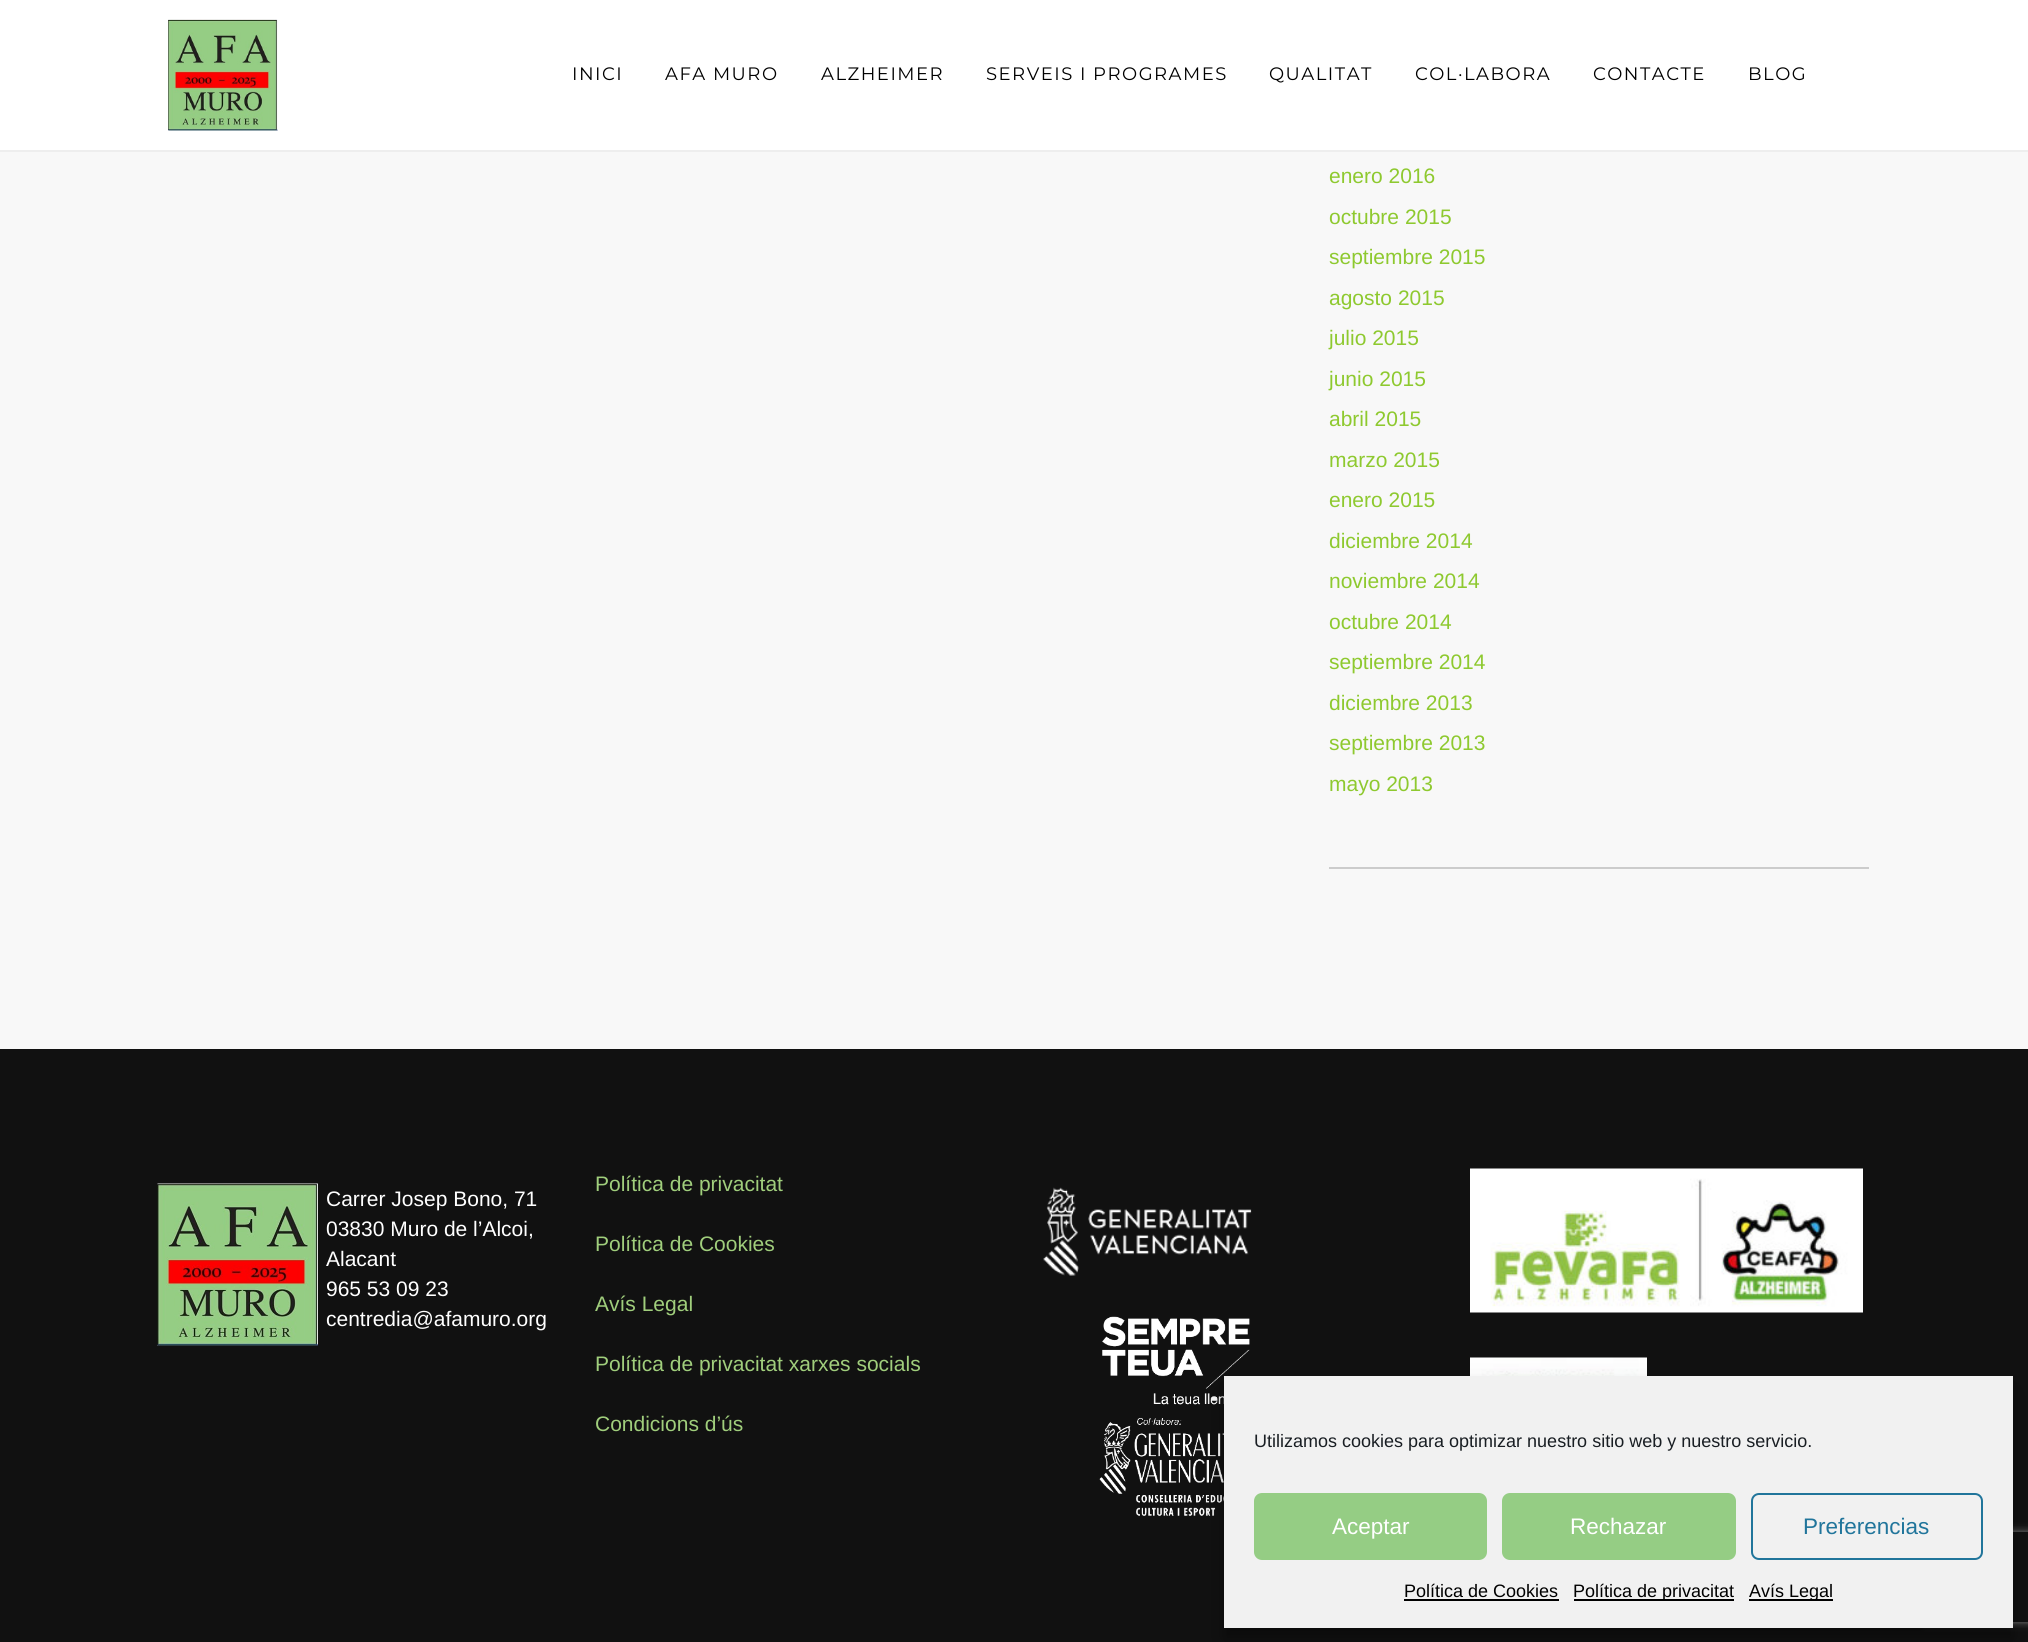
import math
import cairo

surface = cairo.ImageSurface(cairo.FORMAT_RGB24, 2028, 1642)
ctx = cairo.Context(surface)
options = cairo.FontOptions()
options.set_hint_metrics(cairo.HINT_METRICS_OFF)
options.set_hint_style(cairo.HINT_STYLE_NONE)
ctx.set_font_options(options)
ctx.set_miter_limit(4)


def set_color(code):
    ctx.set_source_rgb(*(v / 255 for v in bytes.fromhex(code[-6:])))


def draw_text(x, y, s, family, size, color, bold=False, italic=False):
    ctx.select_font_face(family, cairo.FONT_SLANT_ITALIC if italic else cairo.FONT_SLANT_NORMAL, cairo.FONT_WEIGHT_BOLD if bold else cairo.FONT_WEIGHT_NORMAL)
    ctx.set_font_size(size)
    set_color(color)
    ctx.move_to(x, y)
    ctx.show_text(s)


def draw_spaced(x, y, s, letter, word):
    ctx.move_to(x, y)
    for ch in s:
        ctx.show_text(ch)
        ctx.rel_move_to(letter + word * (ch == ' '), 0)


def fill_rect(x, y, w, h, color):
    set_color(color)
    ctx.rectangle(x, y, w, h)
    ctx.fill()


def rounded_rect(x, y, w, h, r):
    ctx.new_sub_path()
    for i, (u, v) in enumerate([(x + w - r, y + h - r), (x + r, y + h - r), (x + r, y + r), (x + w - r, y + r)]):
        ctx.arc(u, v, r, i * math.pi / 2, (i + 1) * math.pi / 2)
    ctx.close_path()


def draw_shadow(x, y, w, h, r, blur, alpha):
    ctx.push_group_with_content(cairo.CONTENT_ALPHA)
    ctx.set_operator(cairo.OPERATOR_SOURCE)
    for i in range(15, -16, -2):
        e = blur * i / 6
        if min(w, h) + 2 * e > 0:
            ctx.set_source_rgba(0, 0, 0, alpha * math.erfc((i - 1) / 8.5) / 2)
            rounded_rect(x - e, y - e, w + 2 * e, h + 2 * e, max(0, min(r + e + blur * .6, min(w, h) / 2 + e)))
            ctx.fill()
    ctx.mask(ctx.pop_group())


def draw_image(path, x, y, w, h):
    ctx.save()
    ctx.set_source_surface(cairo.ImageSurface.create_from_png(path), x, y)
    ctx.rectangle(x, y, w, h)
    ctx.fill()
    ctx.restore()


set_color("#f8f8f8")
ctx.paint()
fill_rect(0, 150, 2028, 2, "#eeeeee")
fill_rect(0, 0, 2028, 150, "#ffffff")
draw_image("assets/img1.png", 168, 19, 110, 112)
ctx.select_font_face("Montserrat")
ctx.set_font_size(18)
set_color("#000000")
draw_spaced(572, 80, "INICI", 1.5, 0)
draw_spaced(665, 80, "AFA MURO", 1.5, 0)
draw_spaced(821, 80, "ALZHEIMER", 1.5, 0)
draw_spaced(986, 80, "SERVEIS I PROGRAMES", 1.5, 0)
draw_spaced(1269, 80, "QUALITAT", 1.5, 0)
draw_spaced(1415, 80, "COL·LABORA", 1.5, 0)
draw_spaced(1593, 80, "CONTACTE", 1.5, 0)
draw_spaced(1748, 80, "BLOG", 1.5, 0)
fill_rect(1329, 867, 540, 2, "#cccccc")
draw_text(1329, 183, "enero 2016", "Liberation Sans", 21, "#8ec92f")
draw_text(1329, 224, "octubre 2015", "Liberation Sans", 21, "#8ec92f")
draw_text(1329, 264, "septiembre 2015", "Liberation Sans", 21, "#8ec92f")
draw_text(1329, 305, "agosto 2015", "Liberation Sans", 21, "#8ec92f")
draw_text(1329, 345, "julio 2015", "Liberation Sans", 21, "#8ec92f")
draw_text(1329, 386, "junio 2015", "Liberation Sans", 21, "#8ec92f")
draw_text(1329, 426, "abril 2015", "Liberation Sans", 21, "#8ec92f")
draw_text(1329, 467, "marzo 2015", "Liberation Sans", 21, "#8ec92f")
draw_text(1329, 507, "enero 2015", "Liberation Sans", 21, "#8ec92f")
draw_text(1329, 548, "diciembre 2014", "Liberation Sans", 21, "#8ec92f")
draw_text(1329, 588, "noviembre 2014", "Liberation Sans", 21, "#8ec92f")
draw_text(1329, 629, "octubre 2014", "Liberation Sans", 21, "#8ec92f")
draw_text(1329, 669, "septiembre 2014", "Liberation Sans", 21, "#8ec92f")
draw_text(1329, 710, "diciembre 2013", "Liberation Sans", 21, "#8ec92f")
draw_text(1329, 750, "septiembre 2013", "Liberation Sans", 21, "#8ec92f")
draw_text(1329, 791, "mayo 2013", "Liberation Sans", 21, "#8ec92f")
fill_rect(0, 1049, 2028, 593, "#111111")
draw_image("assets/img2.png", 157, 1183, 161, 163)
draw_text(326, 1206, "Carrer Josep Bono, 71", "Liberation Sans", 21, "#ffffff")
draw_text(326, 1236, "03830 Muro de l’Alcoi,", "Liberation Sans", 21, "#ffffff")
draw_text(326, 1266, "Alacant", "Liberation Sans", 21, "#ffffff")
draw_text(326, 1296, "965 53 09 23", "Liberation Sans", 21, "#ffffff")
draw_text(326, 1326, "centredia@afamuro.org", "Liberation Sans", 21, "#ffffff")
draw_text(595, 1191, "Política de privacitat", "Liberation Sans", 21, "#a0ce7c")
draw_text(595, 1251, "Política de Cookies", "Liberation Sans", 21, "#a0ce7c")
draw_text(595, 1311, "Avís Legal", "Liberation Sans", 21, "#a0ce7c")
draw_text(595, 1371, "Política de privacitat xarxes socials", "Liberation Sans", 21, "#a0ce7c")
draw_text(595, 1431, "Condicions d’ús", "Liberation Sans", 21, "#a0ce7c")
draw_image("assets/img3.png", 1043, 1187, 209, 89)
draw_image("assets/img4.png", 1099, 1316, 151, 200)
draw_image("assets/img5.png", 1470, 1168, 393, 145)
draw_image("assets/img6.png", 1470, 1357, 177, 19)
set_color("#000000")
draw_shadow(1224, 1385, 789, 252, 0, 4.5, 0.23)
draw_shadow(1224, 1391, 789, 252, 0, 15, 0.19)
ctx.save()
ctx.set_fill_rule(cairo.FILL_RULE_EVEN_ODD)
ctx.new_path()
ctx.move_to(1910, 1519)
ctx.line_to(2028, 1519)
ctx.line_to(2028, 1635)
ctx.line_to(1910, 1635)
ctx.close_path()
ctx.move_to(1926, 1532)
ctx.line_to(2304, 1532)
ctx.curve_to(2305.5, 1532, 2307, 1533.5, 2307, 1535)
ctx.line_to(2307, 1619)
ctx.curve_to(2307, 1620.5, 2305.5, 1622, 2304, 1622)
ctx.line_to(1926, 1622)
ctx.curve_to(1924.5, 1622, 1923, 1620.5, 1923, 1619)
ctx.line_to(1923, 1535)
ctx.curve_to(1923, 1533.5, 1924.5, 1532, 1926, 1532)
ctx.close_path()
ctx.clip()
set_color("#808080")
draw_shadow(1923, 1532, 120, 90, 3, 4, 1)
ctx.restore()
fill_rect(1224, 1376, 789, 252, "#f1f1f1")
draw_text(1254, 1447, "Utilizamos cookies para optimizar nuestro sitio web y nuestro servicio.", "Liberation Sans", 18, "#191e23")
set_color("#95cd84")
rounded_rect(1255, 1494, 231, 65, 7)
ctx.fill_preserve()
ctx.stroke()
draw_text(1332, 1534, "Aceptar", "Liberation Sans", 22.5, "#ffffff")
set_color("#95cd84")
rounded_rect(1503, 1494, 232, 65, 7)
ctx.fill_preserve()
ctx.stroke()
draw_text(1570, 1534, "Rechazar", "Liberation Sans", 22.5, "#ffffff")
rounded_rect(1752, 1494, 230, 65, 7)
set_color("#21759b")
ctx.stroke()
draw_text(1803, 1534, "Preferencias", "Liberation Sans", 22.5, "#21759b")
draw_text(1404, 1597, "Política de Cookies", "Liberation Sans", 18, "#000000")
fill_rect(1404, 1599, 155, 2, "#000000")
fill_rect(1574, 1599, 160, 2, "#000000")
draw_text(1573, 1597, "Política de privacitat", "Liberation Sans", 18, "#000000")
fill_rect(1749, 1599, 84, 2, "#000000")
draw_text(1749, 1597, "Avís Legal", "Liberation Sans", 18, "#000000")
surface.write_to_png("output.png")
